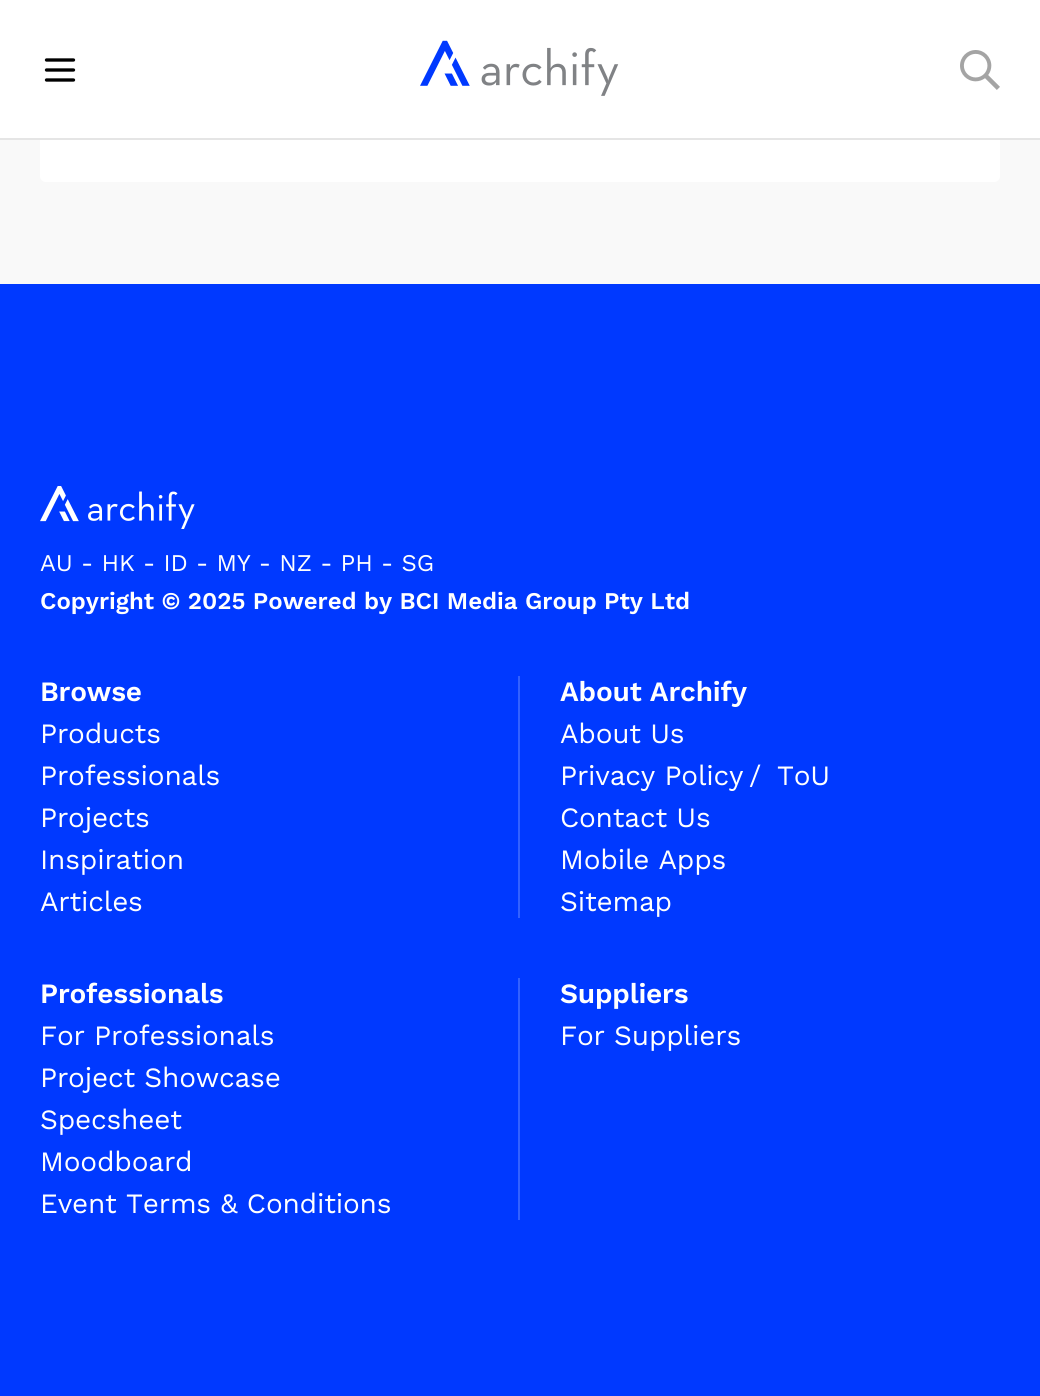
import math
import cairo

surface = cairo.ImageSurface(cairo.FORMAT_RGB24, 1040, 1396)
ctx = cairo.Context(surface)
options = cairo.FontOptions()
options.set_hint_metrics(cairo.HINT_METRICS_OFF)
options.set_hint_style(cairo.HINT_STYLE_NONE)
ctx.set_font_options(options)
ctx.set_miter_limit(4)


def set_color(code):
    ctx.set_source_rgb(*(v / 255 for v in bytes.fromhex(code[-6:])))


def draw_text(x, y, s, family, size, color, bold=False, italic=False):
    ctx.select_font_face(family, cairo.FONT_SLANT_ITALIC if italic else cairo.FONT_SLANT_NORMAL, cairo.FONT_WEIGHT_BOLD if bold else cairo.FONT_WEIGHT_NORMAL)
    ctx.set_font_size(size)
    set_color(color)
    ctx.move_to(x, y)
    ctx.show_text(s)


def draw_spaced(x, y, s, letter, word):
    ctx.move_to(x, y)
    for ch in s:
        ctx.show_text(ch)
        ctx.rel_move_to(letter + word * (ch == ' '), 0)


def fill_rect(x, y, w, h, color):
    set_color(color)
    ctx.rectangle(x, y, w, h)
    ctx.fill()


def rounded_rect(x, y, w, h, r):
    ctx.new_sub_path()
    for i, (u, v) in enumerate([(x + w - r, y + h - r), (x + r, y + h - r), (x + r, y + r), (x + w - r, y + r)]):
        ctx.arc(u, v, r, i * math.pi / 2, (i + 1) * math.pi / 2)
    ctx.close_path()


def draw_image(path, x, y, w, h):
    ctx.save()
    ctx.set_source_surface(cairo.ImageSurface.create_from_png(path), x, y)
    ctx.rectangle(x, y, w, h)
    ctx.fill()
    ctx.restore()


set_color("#f9f9f9")
ctx.paint()
set_color("#ffffff")
rounded_rect(40, -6, 960, 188, 6)
ctx.fill()
fill_rect(0, 0, 1040, 138, "#ffffff")
fill_rect(0, 138, 1040, 2, "#e5e5e5")
ctx.new_path()
ctx.move_to(46.5, 80)
ctx.line_to(73.5, 80)
ctx.move_to(46.5, 70)
ctx.line_to(73.5, 70)
ctx.move_to(46.5, 60)
ctx.line_to(73.5, 60)
set_color("#000000")
ctx.set_line_width(3.3)
ctx.set_line_cap(cairo.LINE_CAP_ROUND)
ctx.stroke()
draw_image("assets/img1.png", 420, 40, 199, 56)
draw_image("assets/img2.png", 960, 50, 40, 40)
fill_rect(0, 284, 1040, 1112, "#0039ff")
draw_image("assets/img3.png", 40, 486, 155, 43)
draw_text(40, 571, "AU - HK - ID - MY - NZ - PH - SG", "Work Sans", 24, "#ffffff")
draw_text(40, 609, "Copyright © 2025 Powered by BCI Media Group Pty Ltd", "Work Sans SemiBold", 24, "#ffffff")
fill_rect(518, 676, 2, 242, "#3361ff")
ctx.set_font_size(28)
set_color("#ffffff")
draw_spaced(40, 701, "Browse", -0.2, 0)
ctx.select_font_face("Work Sans")
draw_spaced(40, 743, "Products", -0.2, 0)
draw_spaced(40, 785, "Professionals", -0.2, 0)
draw_spaced(40, 827, "Projects", -0.2, 0)
draw_spaced(40, 869, "Inspiration", -0.2, 0)
draw_spaced(40, 911, "Articles", -0.2, 0)
ctx.select_font_face("Work Sans SemiBold")
draw_spaced(560, 701, "About Archify", -0.2, 0)
ctx.select_font_face("Work Sans")
draw_spaced(560, 743, "About Us", -0.2, 0)
draw_spaced(560, 785, "Privacy Policy", -0.2, 0)
draw_spaced(749, 785, "/", -0.2, 0)
draw_spaced(777, 785, "ToU", -0.2, 0)
draw_spaced(560, 827, "Contact Us", -0.2, 0)
draw_spaced(560, 869, "Mobile Apps", -0.2, 0)
draw_spaced(560, 911, "Sitemap", -0.2, 0)
fill_rect(518, 978, 2, 242, "#3361ff")
ctx.select_font_face("Work Sans SemiBold")
set_color("#ffffff")
draw_spaced(40, 1003, "Professionals", -0.2, 0)
ctx.select_font_face("Work Sans")
draw_spaced(40, 1045, "For Professionals", -0.2, 0)
draw_spaced(40, 1087, "Project Showcase", -0.2, 0)
draw_spaced(40, 1129, "Specsheet", -0.2, 0)
draw_spaced(40, 1171, "Moodboard", -0.2, 0)
draw_spaced(40, 1213, "Event Terms & Conditions", -0.2, 0)
ctx.select_font_face("Work Sans SemiBold")
draw_spaced(560, 1003, "Suppliers", -0.2, 0)
ctx.select_font_face("Work Sans")
draw_spaced(560, 1045, "For Suppliers", -0.2, 0)
surface.write_to_png("output.png")
